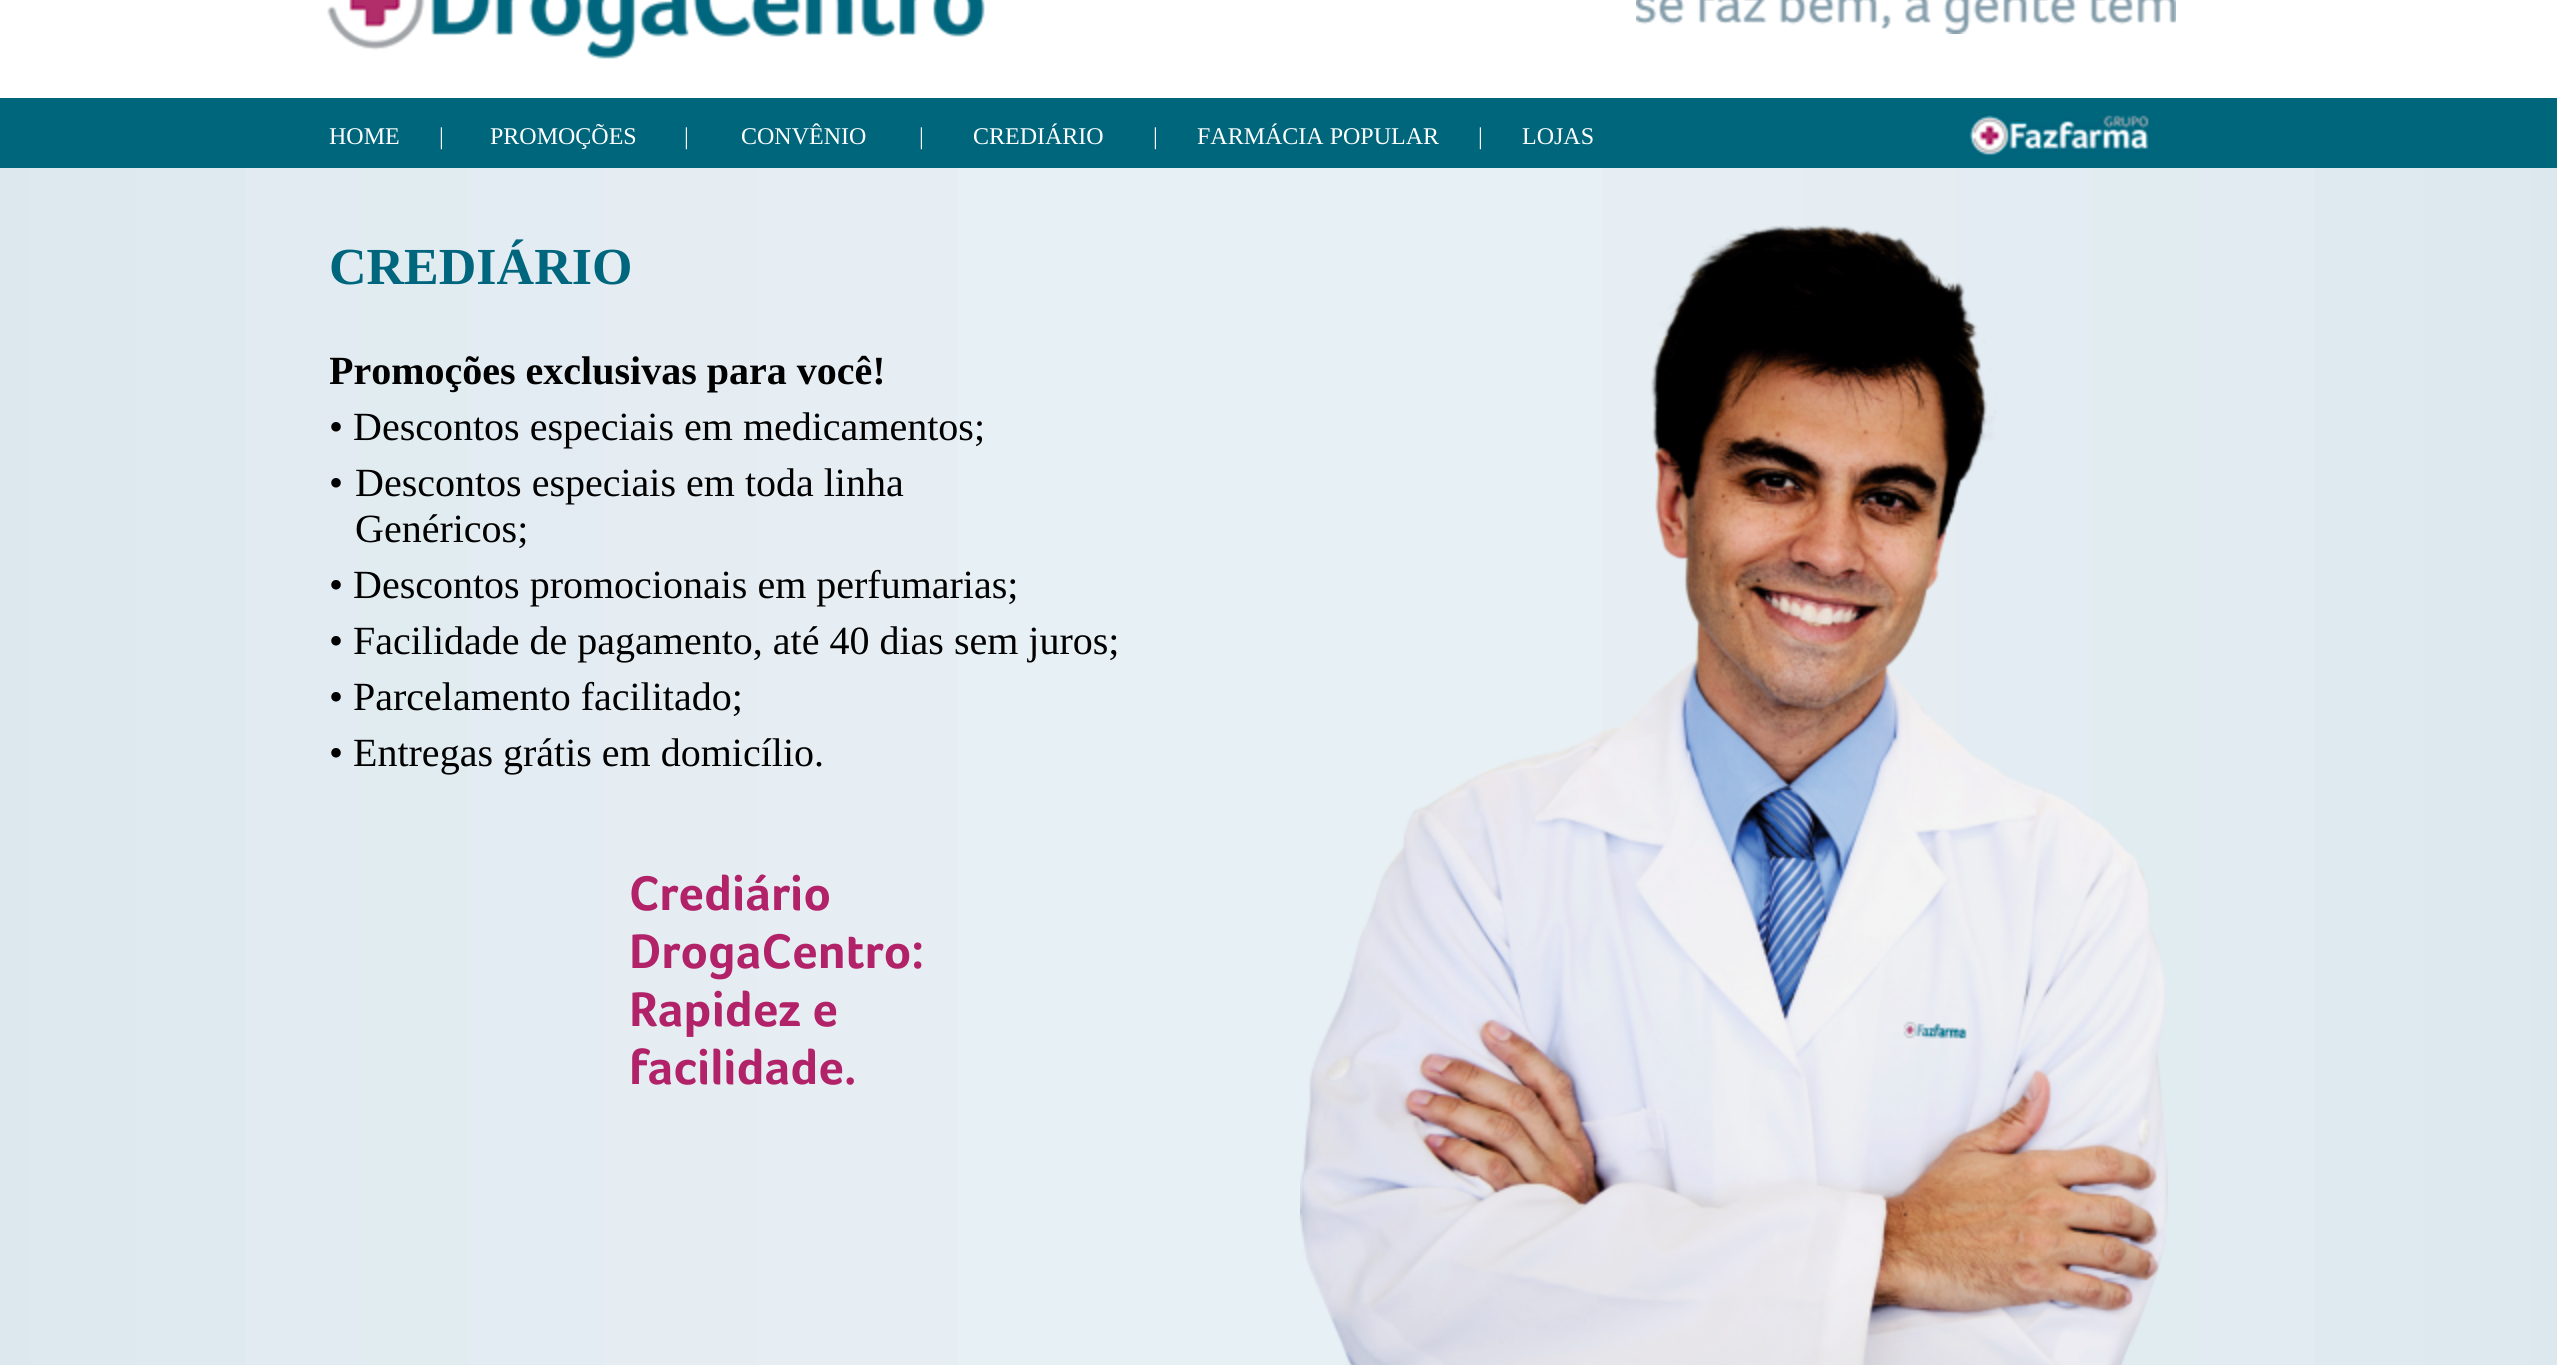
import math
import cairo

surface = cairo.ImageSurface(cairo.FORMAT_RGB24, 2557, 1365)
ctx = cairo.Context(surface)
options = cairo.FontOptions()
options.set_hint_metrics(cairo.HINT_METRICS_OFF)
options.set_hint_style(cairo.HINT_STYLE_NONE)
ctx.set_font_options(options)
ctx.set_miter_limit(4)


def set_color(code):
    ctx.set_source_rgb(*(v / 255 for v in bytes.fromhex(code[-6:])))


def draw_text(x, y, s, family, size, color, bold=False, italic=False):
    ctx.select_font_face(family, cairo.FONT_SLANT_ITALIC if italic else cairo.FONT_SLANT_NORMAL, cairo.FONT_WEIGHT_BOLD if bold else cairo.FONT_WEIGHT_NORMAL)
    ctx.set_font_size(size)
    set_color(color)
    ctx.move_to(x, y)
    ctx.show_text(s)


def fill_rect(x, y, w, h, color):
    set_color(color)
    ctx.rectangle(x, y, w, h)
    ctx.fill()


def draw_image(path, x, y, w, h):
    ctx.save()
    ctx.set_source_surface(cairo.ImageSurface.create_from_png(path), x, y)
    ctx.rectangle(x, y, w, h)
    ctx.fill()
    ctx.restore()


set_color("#ffffff")
ctx.paint()
draw_image("assets/img1.png", 0, 168, 2557, 1197)
draw_image("assets/img2.png", 327, 0, 658, 59)
draw_image("assets/img3.png", 1636, 0, 540, 34)
fill_rect(0, 98, 2557, 70, "#00667c")
draw_text(329, 144, "HOME", "Liberation Serif", 24, "#ffffff")
draw_text(439, 144, "|", "Liberation Serif", 24, "#ffffff")
draw_text(490, 144, "PROMOÇÕES", "Liberation Serif", 24, "#ffffff")
draw_text(684, 144, "|", "Liberation Serif", 24, "#ffffff")
draw_text(741, 144, "CONVÊNIO", "Liberation Serif", 24, "#ffffff")
draw_text(919, 144, "|", "Liberation Serif", 24, "#ffffff")
draw_text(973, 144, "CREDIÁRIO", "Liberation Serif", 24, "#ffffff")
draw_text(1153, 144, "|", "Liberation Serif", 24, "#ffffff")
draw_text(1197, 144, "FARMÁCIA POPULAR", "Liberation Serif", 24, "#ffffff")
draw_text(1478, 144, "|", "Liberation Serif", 24, "#ffffff")
draw_text(1522, 144, "LOJAS", "Liberation Serif", 24, "#ffffff")
draw_image("assets/img4.png", 1968, 114, 182, 42)
draw_text(329, 284, "CREDIÁRIO", "Liberation Serif", 52, "#00667d", bold=True)
ctx.save()
ctx.rectangle(330, 168, 1930, 930)
ctx.clip()
draw_text(329, 384, "Promoções exclusivas para você!", "Liberation Serif", 40, "#000000", bold=True)
ctx.restore()
draw_text(329, 440, "• Descontos especiais em medicamentos;", "Liberation Serif", 40, "#000000")
draw_text(329, 496, "•", "Liberation Serif", 40, "#000000")
draw_text(355, 496, "Descontos especiais em toda linha", "Liberation Serif", 40, "#000000")
draw_text(355, 542, "Genéricos;", "Liberation Serif", 40, "#000000")
draw_text(329, 598, "• Descontos promocionais em perfumarias;", "Liberation Serif", 40, "#000000")
draw_text(329, 654, "• Facilidade de pagamento, até 40 dias sem juros;", "Liberation Serif", 40, "#000000")
draw_text(329, 710, "• Parcelamento facilitado;", "Liberation Serif", 40, "#000000")
draw_text(329, 766, "• Entregas grátis em domicílio.", "Liberation Serif", 40, "#000000")
draw_image("assets/img5.png", 1300, 225, 868, 1140)
draw_text(629, 910, "Crediário", "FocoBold", 50, "#b12269", bold=True)
draw_text(629, 968, "DrogaCentro:", "FocoBold", 50, "#b12269", bold=True)
draw_text(629, 1026, "Rapidez e", "FocoBold", 50, "#b12269", bold=True)
draw_text(629, 1084, "facilidade.", "FocoBold", 50, "#b12269", bold=True)
surface.write_to_png("output.png")
